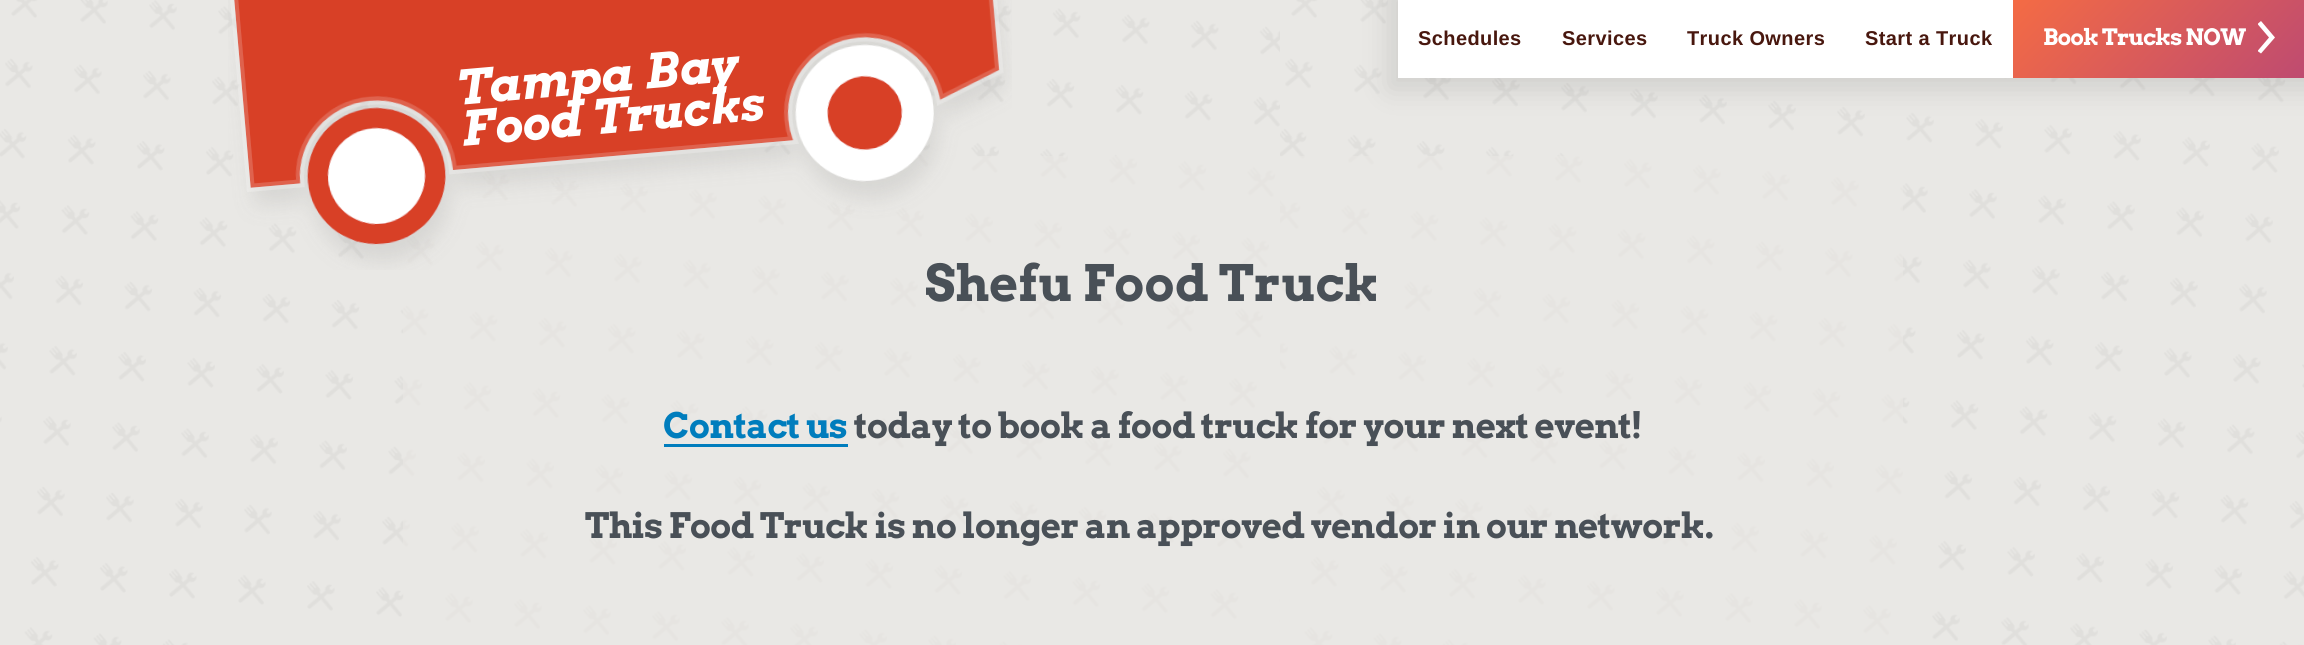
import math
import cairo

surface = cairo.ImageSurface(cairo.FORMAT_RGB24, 2304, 645)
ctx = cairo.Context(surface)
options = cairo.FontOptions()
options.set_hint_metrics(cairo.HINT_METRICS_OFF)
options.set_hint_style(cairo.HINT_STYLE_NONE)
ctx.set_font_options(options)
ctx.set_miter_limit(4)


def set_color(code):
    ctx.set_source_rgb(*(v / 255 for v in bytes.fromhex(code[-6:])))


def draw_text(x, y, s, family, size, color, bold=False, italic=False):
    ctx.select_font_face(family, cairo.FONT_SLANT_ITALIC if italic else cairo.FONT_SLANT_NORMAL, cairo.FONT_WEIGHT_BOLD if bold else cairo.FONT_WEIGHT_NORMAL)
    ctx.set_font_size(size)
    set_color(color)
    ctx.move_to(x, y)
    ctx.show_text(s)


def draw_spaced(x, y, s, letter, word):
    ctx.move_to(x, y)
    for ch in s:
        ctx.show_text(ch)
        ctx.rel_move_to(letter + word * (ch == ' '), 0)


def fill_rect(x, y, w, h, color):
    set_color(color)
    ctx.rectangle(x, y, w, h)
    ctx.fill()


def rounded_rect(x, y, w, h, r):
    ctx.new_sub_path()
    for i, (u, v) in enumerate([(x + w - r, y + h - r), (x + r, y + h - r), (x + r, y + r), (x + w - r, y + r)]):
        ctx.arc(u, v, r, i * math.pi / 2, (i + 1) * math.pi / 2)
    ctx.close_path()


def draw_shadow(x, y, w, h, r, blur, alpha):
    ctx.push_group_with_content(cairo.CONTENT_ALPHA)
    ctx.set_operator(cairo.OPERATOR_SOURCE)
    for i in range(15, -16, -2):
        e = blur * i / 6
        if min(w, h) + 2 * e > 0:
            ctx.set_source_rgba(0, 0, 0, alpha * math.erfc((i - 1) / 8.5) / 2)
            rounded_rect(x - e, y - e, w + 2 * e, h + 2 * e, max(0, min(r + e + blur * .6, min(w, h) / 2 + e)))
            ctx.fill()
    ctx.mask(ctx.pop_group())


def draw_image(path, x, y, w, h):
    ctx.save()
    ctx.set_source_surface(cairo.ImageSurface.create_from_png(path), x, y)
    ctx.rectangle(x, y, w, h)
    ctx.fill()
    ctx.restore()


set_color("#e9e8e5")
ctx.paint()
draw_image("assets/img1.png", 0, 0, 2304, 645)
set_color("#000000")
draw_shadow(1389, -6, 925, 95, 0, 14.5, 0.11)
fill_rect(1398, 0, 615, 78, "#ffffff")
ctx.select_font_face("Liberation Sans", cairo.FONT_SLANT_NORMAL, cairo.FONT_WEIGHT_BOLD)
ctx.set_font_size(20)
set_color("#48170e")
draw_spaced(1418, 45, "Schedules", 0.4, 0)
draw_spaced(1562, 45, "Services", 0.4, 0)
draw_spaced(1687, 45, "Truck Owners", 0.4, 0)
draw_spaced(1865, 45, "Start a Truck", 0.4, 0)
gradient = cairo.LinearGradient(2064, -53, 2294, 169)
gradient.add_color_stop_rgba(0, 0.957, 0.42, 0.267, 1)
gradient.add_color_stop_rgba(1, 0.702, 0.267, 0.478, 1)
ctx.set_source(gradient)
ctx.rectangle(2013, 0, 291, 78)
ctx.fill()
ctx.select_font_face("Arvo", cairo.FONT_SLANT_NORMAL, cairo.FONT_WEIGHT_BOLD)
ctx.set_font_size(22.5)
set_color("#ffffff")
draw_spaced(2043, 45, "Book Trucks NOW", -0.8, 0)
ctx.save()
ctx.rectangle(2258, 21, 17, 33)
ctx.clip()
ctx.new_path()
ctx.move_to(2275, 37.5)
ctx.line_to(2261, 21)
ctx.line_to(2257.5, 24)
ctx.line_to(2269, 37.5)
ctx.line_to(2257.5, 51)
ctx.line_to(2261, 53.5)
ctx.close_path()
ctx.fill()
ctx.restore()
ctx.set_source_rgba(0.914, 0.91, 0.898, 0.6)
ctx.rectangle(403, 156, 1500, 489)
ctx.fill()
draw_text(925, 301, "Shefu Food Truck", "Arvo", 50, "#495057", bold=True)
draw_image("assets/img2.png", 228, 0, 784, 270)
ctx.save()
ctx.translate(458, 105)
ctx.rotate(-5 * math.pi / 180)
draw_text(0, 0, "Tampa Bay", "Arvo", 47.5, "#ffffff", bold=True, italic=True)
ctx.restore()
ctx.save()
ctx.translate(462, 146)
ctx.rotate(-5 * math.pi / 180)
draw_text(0, 0, "Food Trucks", "Arvo", 47.5, "#ffffff", bold=True, italic=True)
ctx.restore()
ctx.select_font_face("Arvo", cairo.FONT_SLANT_NORMAL, cairo.FONT_WEIGHT_BOLD)
ctx.set_font_size(35)
set_color("#007dbd")
draw_spaced(663, 438, "Contact us", -0.8, 0)
fill_rect(664, 444, 184, 3, "#007dbd")
set_color("#495057")
draw_spaced(854, 438, "today to book a food truck for your next event!", -0.8, 0)
draw_spaced(585, 538, "This Food Truck is no longer an approved vendor in our network.", -0.8, 0)
surface.write_to_png("output.png")
